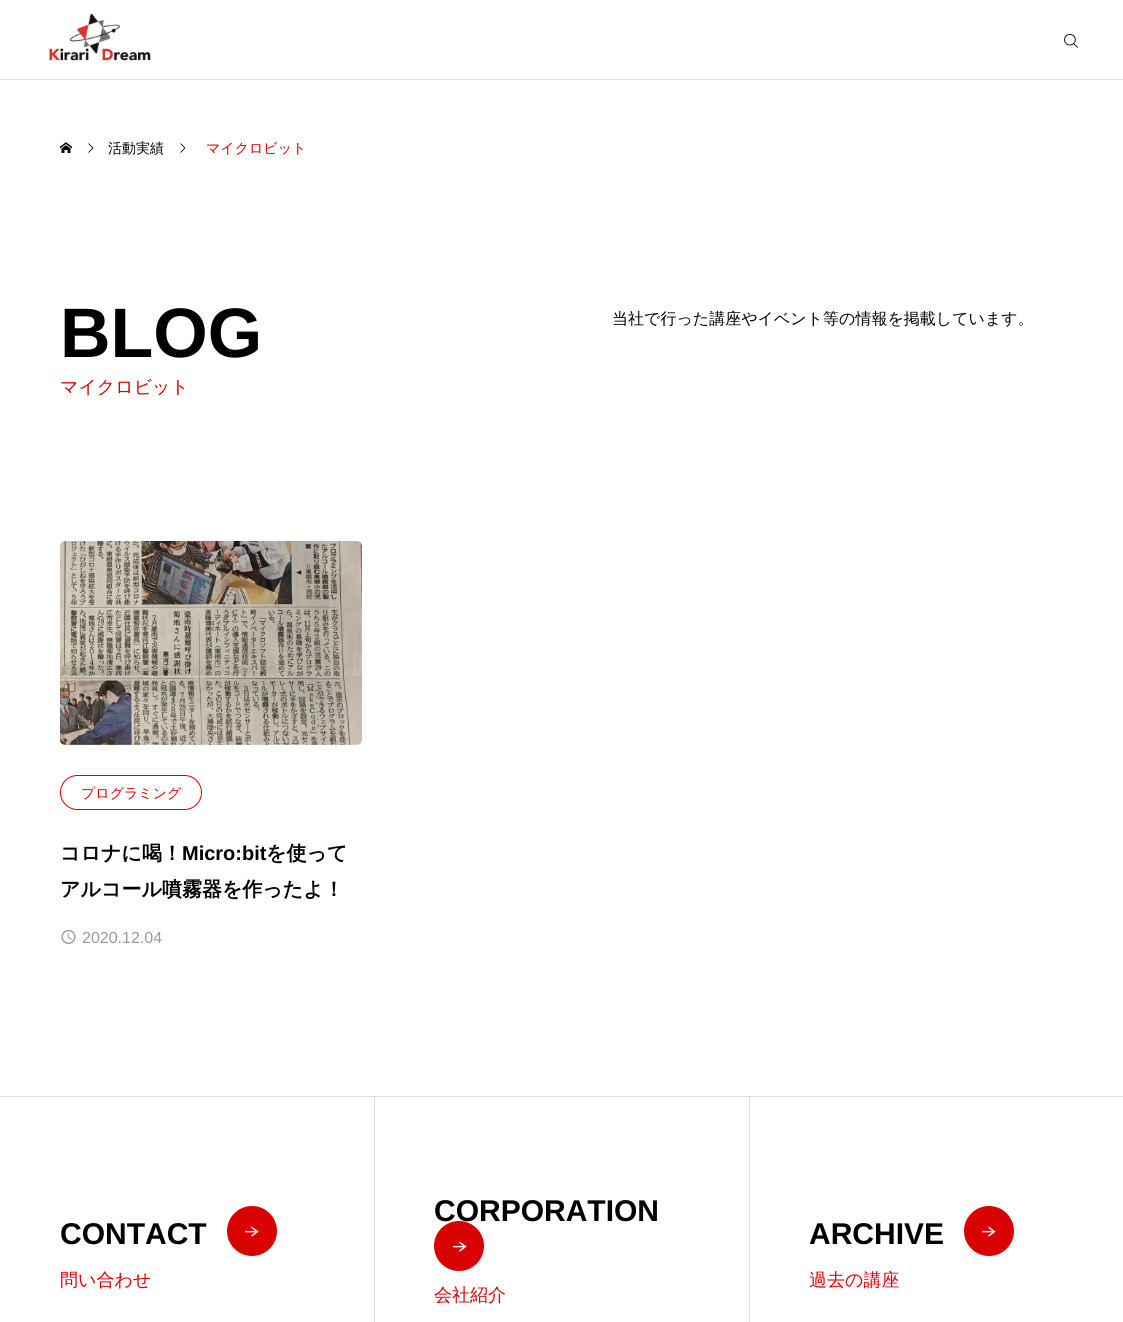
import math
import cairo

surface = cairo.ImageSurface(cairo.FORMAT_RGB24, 1123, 1322)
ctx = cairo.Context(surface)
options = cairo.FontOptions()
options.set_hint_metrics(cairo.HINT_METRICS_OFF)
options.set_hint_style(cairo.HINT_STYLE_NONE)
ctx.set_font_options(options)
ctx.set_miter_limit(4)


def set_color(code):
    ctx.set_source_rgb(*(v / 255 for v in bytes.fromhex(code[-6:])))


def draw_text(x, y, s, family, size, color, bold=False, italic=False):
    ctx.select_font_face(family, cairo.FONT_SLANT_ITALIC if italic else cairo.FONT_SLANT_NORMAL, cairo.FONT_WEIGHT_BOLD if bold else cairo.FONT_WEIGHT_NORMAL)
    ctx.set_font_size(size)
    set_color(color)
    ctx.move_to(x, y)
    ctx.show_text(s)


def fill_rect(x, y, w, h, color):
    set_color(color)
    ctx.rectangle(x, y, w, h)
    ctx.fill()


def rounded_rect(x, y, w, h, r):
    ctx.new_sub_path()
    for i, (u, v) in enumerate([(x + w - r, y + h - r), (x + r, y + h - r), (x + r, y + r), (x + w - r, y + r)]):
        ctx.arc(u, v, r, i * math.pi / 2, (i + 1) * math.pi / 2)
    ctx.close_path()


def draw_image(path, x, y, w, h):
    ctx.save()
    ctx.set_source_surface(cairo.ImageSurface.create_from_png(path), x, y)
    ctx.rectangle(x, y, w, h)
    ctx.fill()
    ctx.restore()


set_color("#ffffff")
ctx.paint()
fill_rect(0, 79, 1123, 1, "#dddddd")
draw_image("assets/img1.png", 48, 13, 103, 49)
draw_image("assets/img2.png", 1064, 33, 14, 15)
draw_image("assets/img3.png", 60, 142, 12, 11)
draw_image("assets/img4.png", 88, 143, 6, 10)
draw_text(108, 153, "活動実績", "WenQuanYi Zen Hei Medium", 14, "#000000")
draw_image("assets/img4.png", 180, 143, 6, 10)
draw_text(206, 153, "マイクロビット", "WenQuanYi Zen Hei Medium", 14, "#d90000")
draw_text(60, 357, "BLOG", "Liberation Sans", 70, "#000000", bold=True)
draw_text(60, 393, "マイクロビット", "WenQuanYi Zen Hei Medium", 18, "#d90000")
draw_text(612, 324, "当社で行った講座やイベント等の情報を掲載しています。", "WenQuanYi Zen Hei Medium", 16, "#000000")
draw_image("assets/img5.png", 60, 541, 302, 204)
rounded_rect(60.5, 775.5, 141, 34, 17)
set_color("#d90000")
ctx.set_line_width(1)
ctx.stroke()
draw_text(81, 798, "プログラミング", "WenQuanYi Zen Hei Medium", 14, "#d90000")
draw_text(60, 860, "コロナに喝！", "WenQuanYi Zen Hei", 20, "#000000", bold=True)
draw_text(182, 860, "Micro:bit", "Liberation Sans", 20, "#000000", bold=True)
draw_text(266, 860, "を使って", "WenQuanYi Zen Hei", 20, "#000000", bold=True)
draw_text(60, 896, "アルコール噴霧器を作ったよ！", "WenQuanYi Zen Hei", 20, "#000000", bold=True)
draw_image("assets/img6.png", 61, 929, 15, 15)
draw_text(82, 943, "2020.12.04", "Liberation Sans", 16, "#999999")
fill_rect(0, 1096, 1123, 1, "#dddddd")
draw_text(60, 1244, "CONTACT", "Liberation Sans", 30, "#000000", bold=True)
set_color("#d90000")
ctx.new_path()
ctx.arc(252, 1231, 25, 0, 2 * math.pi)
ctx.fill()
draw_image("assets/img7.png", 245, 1226, 14, 11)
draw_text(60, 1286, "問い合わせ", "WenQuanYi Zen Hei Medium", 18, "#d90000")
fill_rect(374, 1097, 1, 225, "#dddddd")
draw_text(434, 1221, "CORPORATION", "Liberation Sans", 30, "#000000", bold=True)
set_color("#d90000")
ctx.new_path()
ctx.arc(459, 1246, 25, 0, 2 * math.pi)
ctx.fill()
draw_image("assets/img7.png", 453, 1241, 14, 11)
draw_text(434, 1301, "会社紹介", "WenQuanYi Zen Hei Medium", 18, "#d90000")
fill_rect(749, 1097, 1, 225, "#dddddd")
draw_text(809, 1244, "ARCHIVE", "Liberation Sans", 30, "#000000", bold=True)
set_color("#d90000")
ctx.new_path()
ctx.arc(989, 1231, 25, 0, 2 * math.pi)
ctx.fill()
draw_image("assets/img7.png", 982, 1226, 14, 11)
draw_text(809, 1286, "過去の講座", "WenQuanYi Zen Hei Medium", 18, "#d90000")
surface.write_to_png("output.png")
